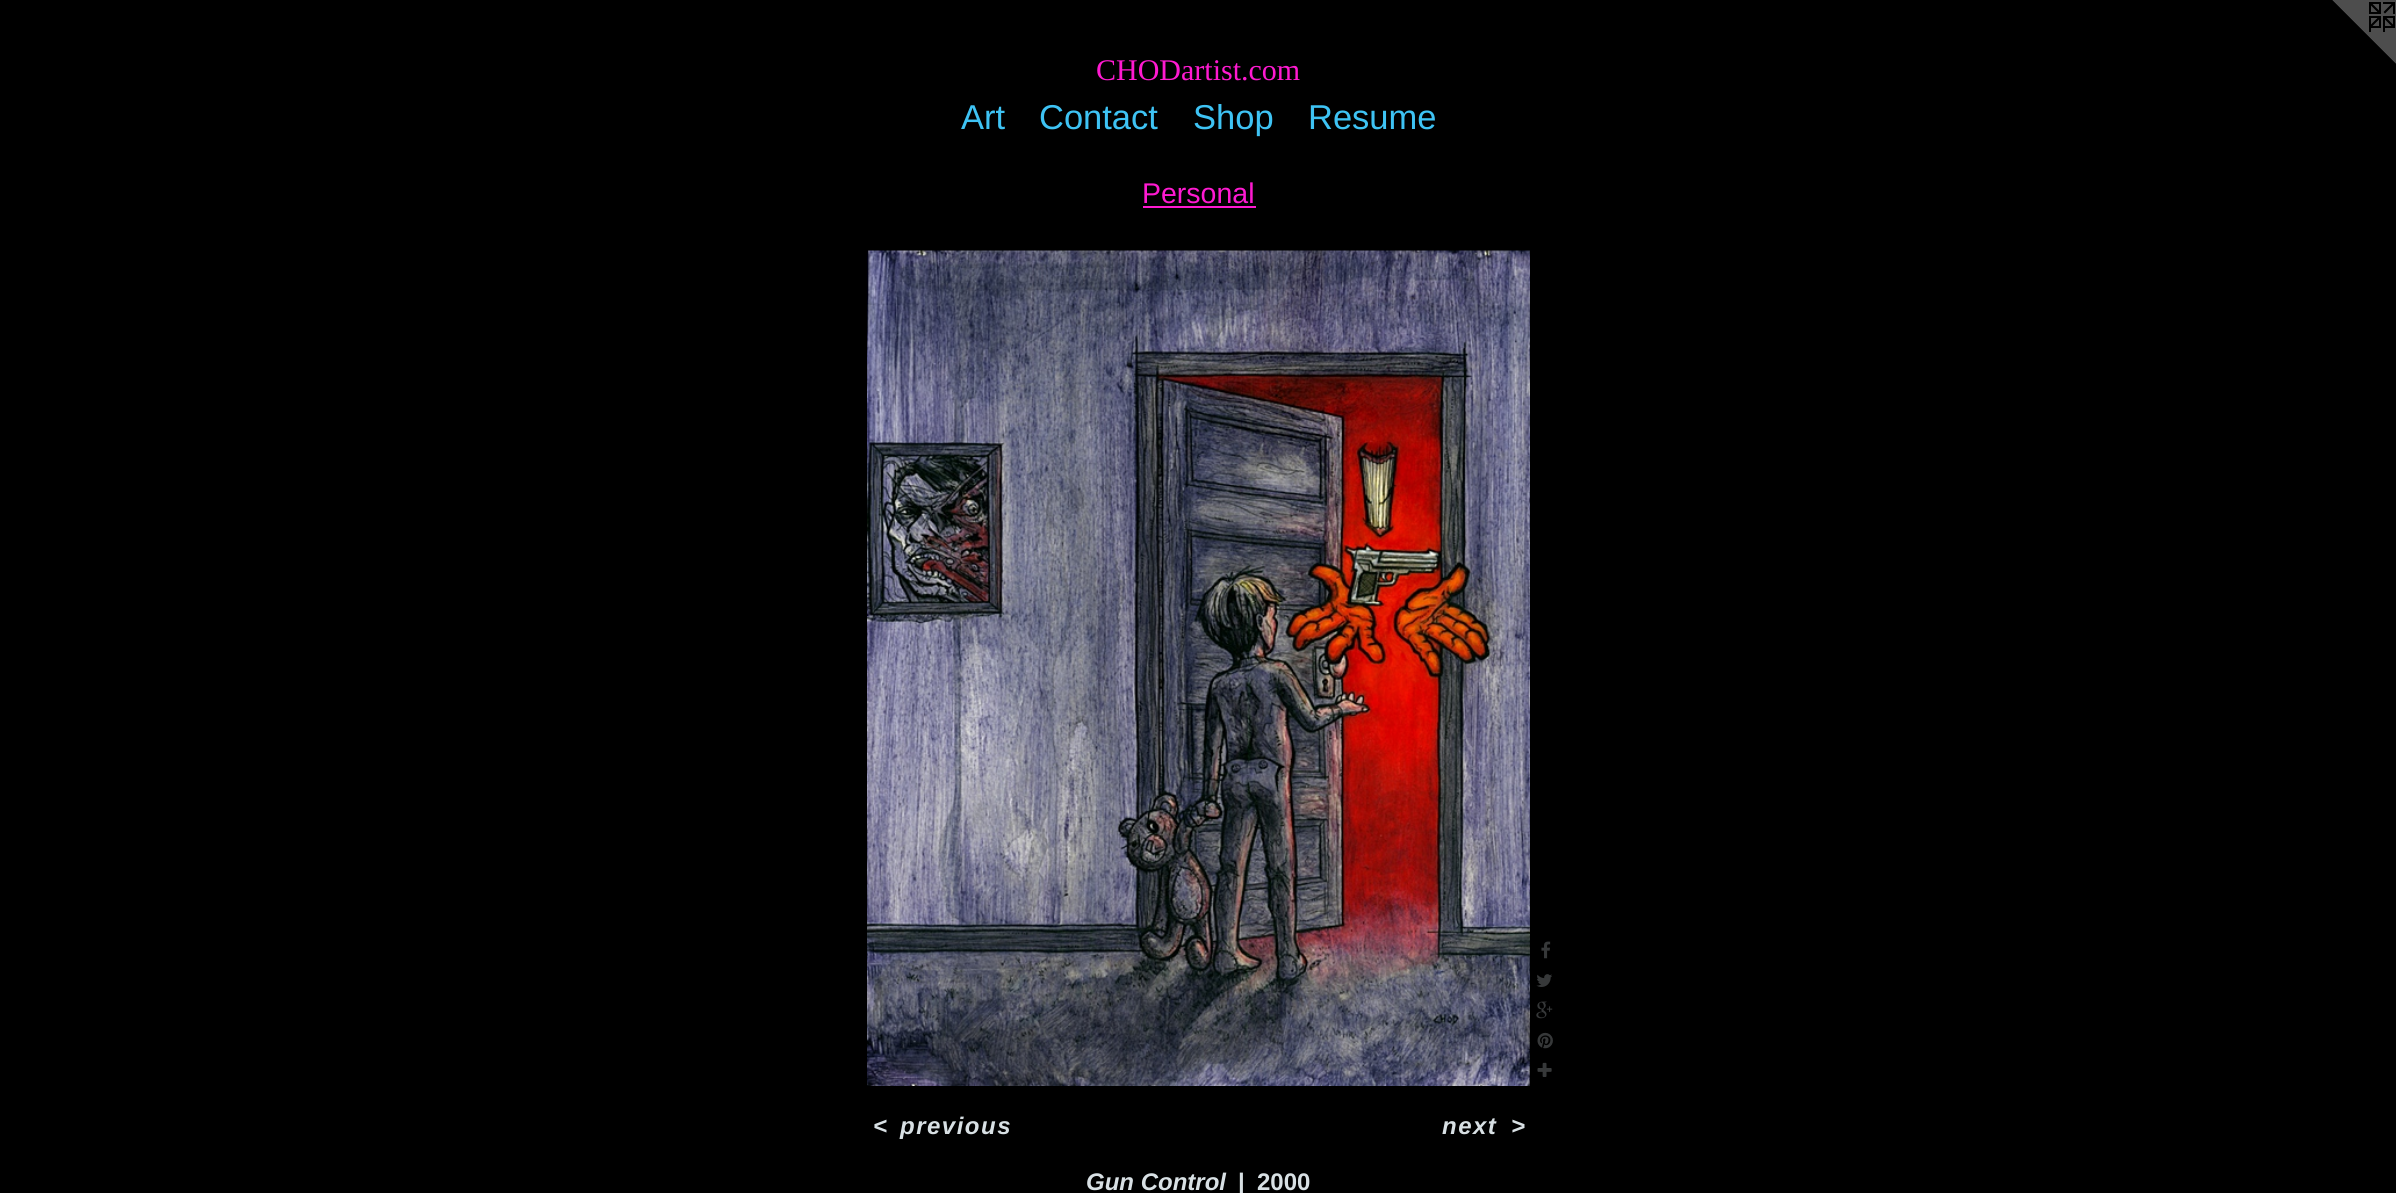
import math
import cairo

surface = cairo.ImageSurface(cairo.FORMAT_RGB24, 2396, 1193)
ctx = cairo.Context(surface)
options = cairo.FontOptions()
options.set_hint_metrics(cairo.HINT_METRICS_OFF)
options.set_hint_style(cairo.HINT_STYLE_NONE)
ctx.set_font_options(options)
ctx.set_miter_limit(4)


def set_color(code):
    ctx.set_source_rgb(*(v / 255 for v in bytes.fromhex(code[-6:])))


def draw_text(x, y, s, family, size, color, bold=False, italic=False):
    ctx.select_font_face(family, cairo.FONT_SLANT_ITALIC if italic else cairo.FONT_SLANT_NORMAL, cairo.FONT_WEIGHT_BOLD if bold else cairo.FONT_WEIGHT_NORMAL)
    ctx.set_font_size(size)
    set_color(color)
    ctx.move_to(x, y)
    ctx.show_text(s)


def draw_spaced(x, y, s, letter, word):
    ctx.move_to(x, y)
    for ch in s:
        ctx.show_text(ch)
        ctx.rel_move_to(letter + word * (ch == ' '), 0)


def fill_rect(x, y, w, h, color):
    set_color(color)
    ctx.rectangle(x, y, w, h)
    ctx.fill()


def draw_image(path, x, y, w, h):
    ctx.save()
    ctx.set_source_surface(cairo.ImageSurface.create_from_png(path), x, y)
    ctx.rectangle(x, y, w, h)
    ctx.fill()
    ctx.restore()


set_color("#000000")
ctx.paint()
draw_image("assets/img1.png", 2332, 0, 64, 64)
draw_text(1096, 80, "CHODartist.com", "Liberation Serif", 30, "#ff1ad1")
draw_text(961, 129, "Art", "Liberation Sans", 34.5, "#3ec3f4")
draw_text(1039, 129, "Contact", "Liberation Sans", 34.5, "#3ec3f4")
draw_text(1193, 129, "Shop", "Liberation Sans", 34.5, "#3ec3f4")
draw_text(1308, 129, "Resume", "Liberation Sans", 34.5, "#3ec3f4")
draw_text(1142, 203, "Personal", "Liberation Sans", 28.5, "#ff1ad1")
fill_rect(1143, 206, 113, 2, "#ff1ad1")
draw_image("assets/img2.png", 867, 250, 663, 836)
draw_image("assets/img3.png", 1541, 941, 10, 18)
draw_image("assets/img4.png", 1536, 974, 16, 13)
draw_image("assets/img5.png", 1536, 1001, 17, 18)
draw_image("assets/img6.png", 1537, 1032, 16, 17)
draw_image("assets/img7.png", 1537, 1062, 15, 15)
ctx.select_font_face("Liberation Sans", cairo.FONT_SLANT_ITALIC, cairo.FONT_WEIGHT_BOLD)
ctx.set_font_size(24)
set_color("#d8e0e4")
draw_spaced(873, 1134, "<", 1.5, 0)
draw_spaced(900, 1134, "previous", 1.5, 0)
draw_spaced(1442, 1134, "next", 1.5, 0)
draw_spaced(1511, 1134, ">", 1.5, 0)
draw_text(1086, 1190, "Gun Control", "Liberation Sans", 24, "#d8e0e4", bold=True, italic=True)
draw_text(1238, 1190, "|", "Liberation Sans", 24, "#d8e0e4", bold=True)
draw_text(1257, 1190, "2000", "Liberation Sans", 24, "#d8e0e4", bold=True)
surface.write_to_png("output.png")
